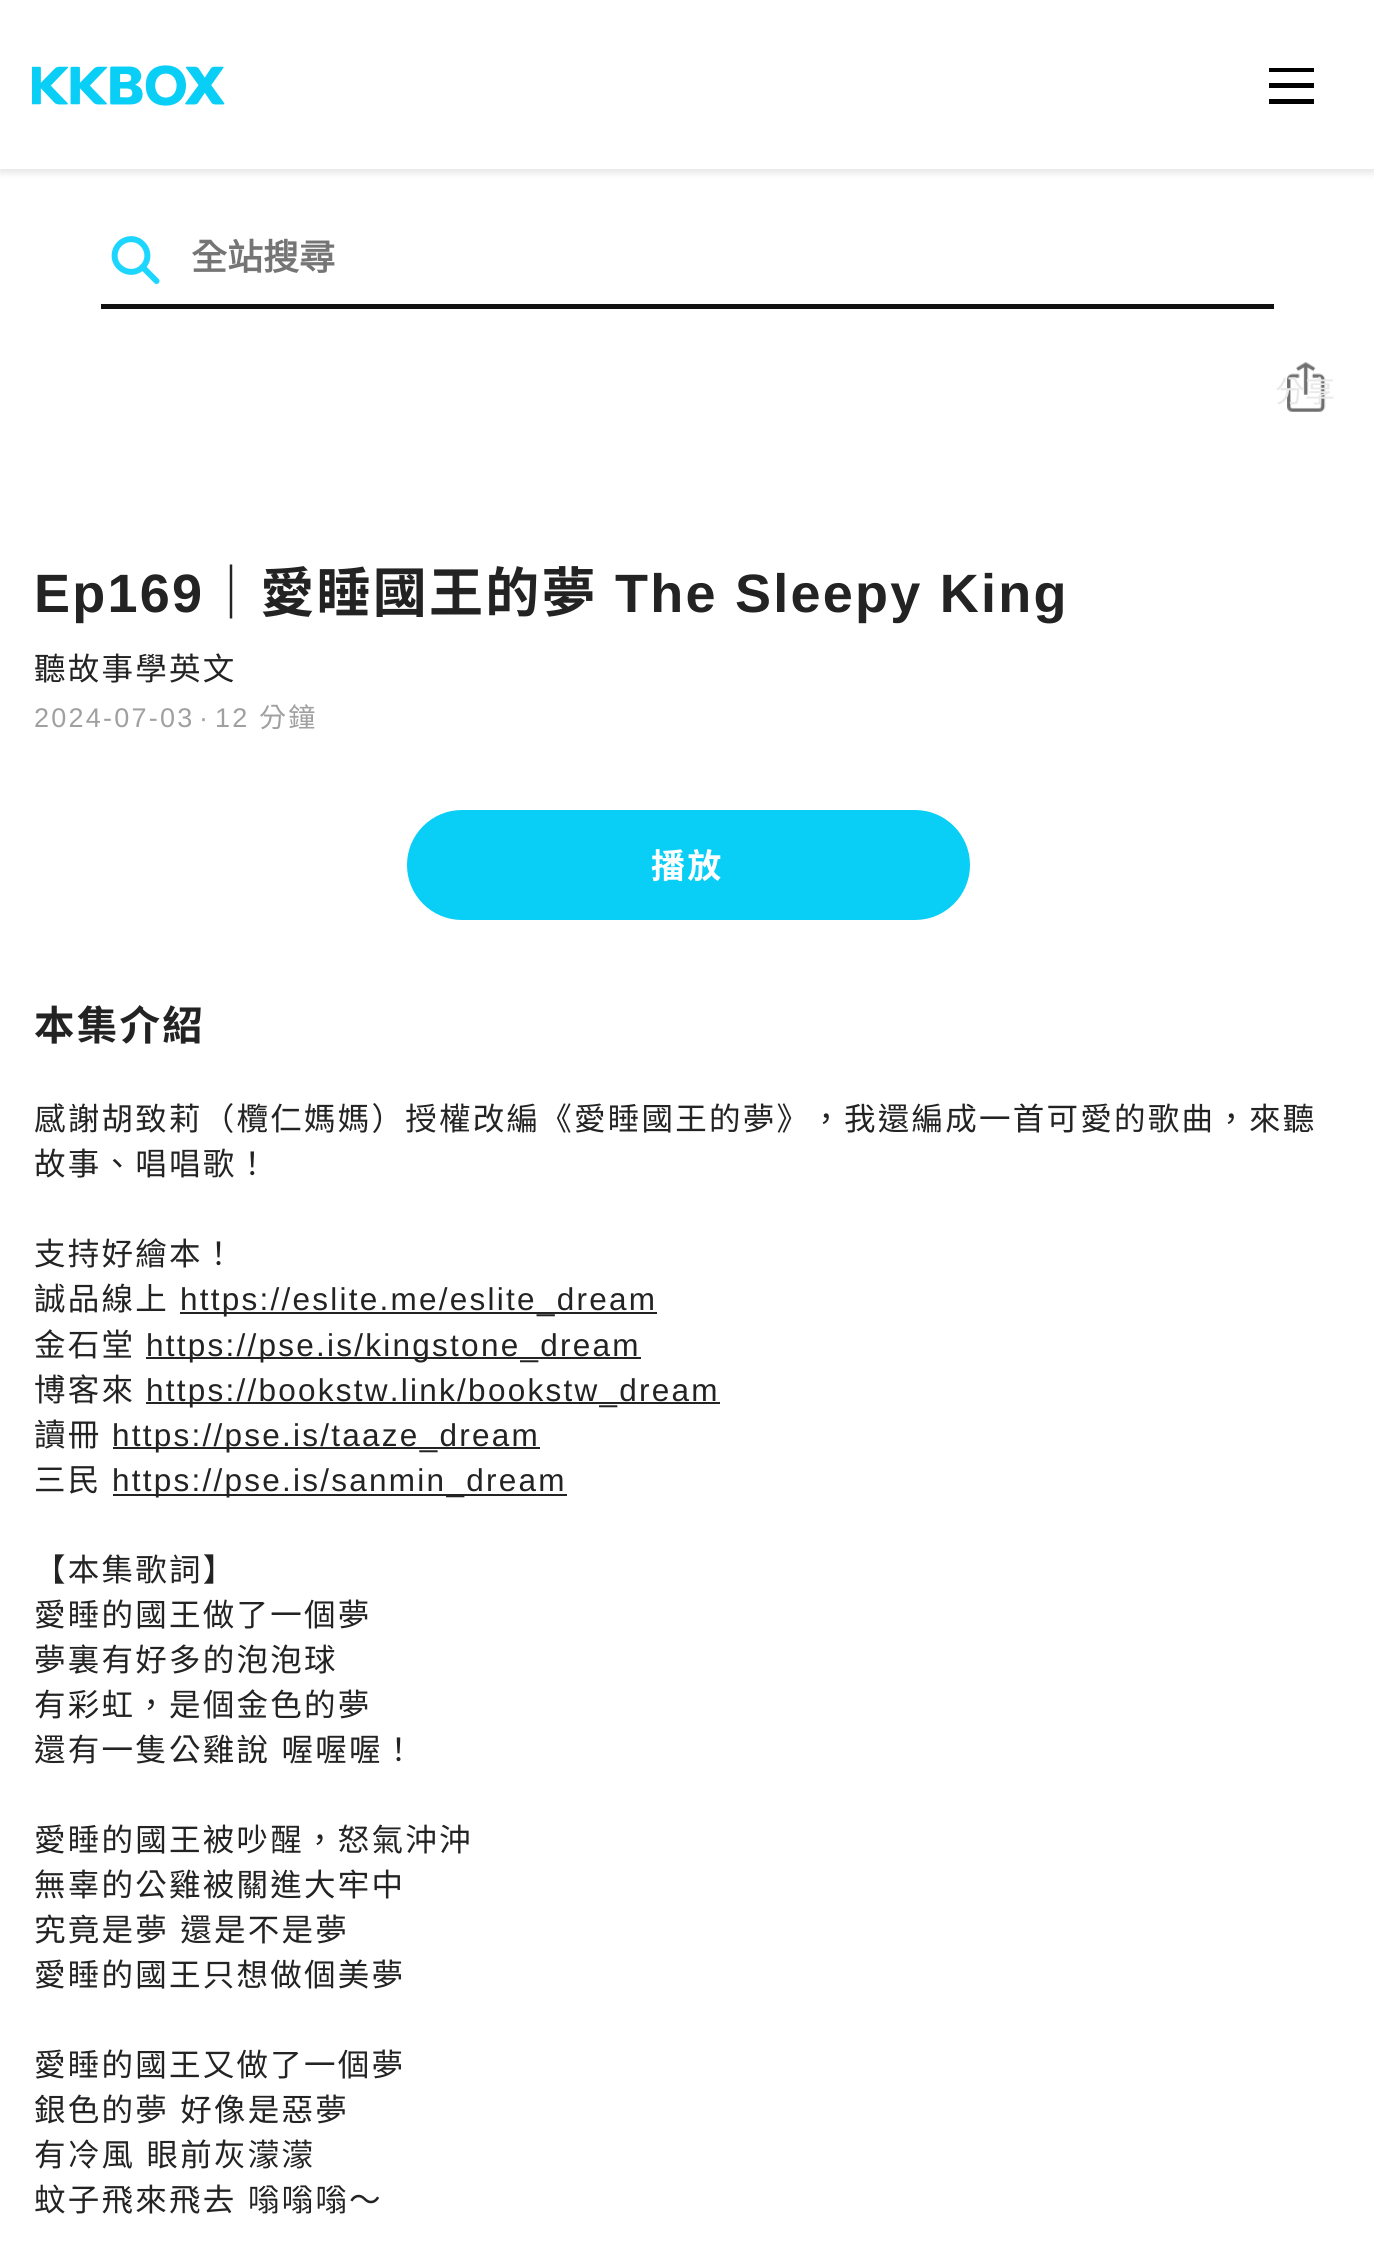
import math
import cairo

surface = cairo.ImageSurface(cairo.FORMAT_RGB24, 1374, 2242)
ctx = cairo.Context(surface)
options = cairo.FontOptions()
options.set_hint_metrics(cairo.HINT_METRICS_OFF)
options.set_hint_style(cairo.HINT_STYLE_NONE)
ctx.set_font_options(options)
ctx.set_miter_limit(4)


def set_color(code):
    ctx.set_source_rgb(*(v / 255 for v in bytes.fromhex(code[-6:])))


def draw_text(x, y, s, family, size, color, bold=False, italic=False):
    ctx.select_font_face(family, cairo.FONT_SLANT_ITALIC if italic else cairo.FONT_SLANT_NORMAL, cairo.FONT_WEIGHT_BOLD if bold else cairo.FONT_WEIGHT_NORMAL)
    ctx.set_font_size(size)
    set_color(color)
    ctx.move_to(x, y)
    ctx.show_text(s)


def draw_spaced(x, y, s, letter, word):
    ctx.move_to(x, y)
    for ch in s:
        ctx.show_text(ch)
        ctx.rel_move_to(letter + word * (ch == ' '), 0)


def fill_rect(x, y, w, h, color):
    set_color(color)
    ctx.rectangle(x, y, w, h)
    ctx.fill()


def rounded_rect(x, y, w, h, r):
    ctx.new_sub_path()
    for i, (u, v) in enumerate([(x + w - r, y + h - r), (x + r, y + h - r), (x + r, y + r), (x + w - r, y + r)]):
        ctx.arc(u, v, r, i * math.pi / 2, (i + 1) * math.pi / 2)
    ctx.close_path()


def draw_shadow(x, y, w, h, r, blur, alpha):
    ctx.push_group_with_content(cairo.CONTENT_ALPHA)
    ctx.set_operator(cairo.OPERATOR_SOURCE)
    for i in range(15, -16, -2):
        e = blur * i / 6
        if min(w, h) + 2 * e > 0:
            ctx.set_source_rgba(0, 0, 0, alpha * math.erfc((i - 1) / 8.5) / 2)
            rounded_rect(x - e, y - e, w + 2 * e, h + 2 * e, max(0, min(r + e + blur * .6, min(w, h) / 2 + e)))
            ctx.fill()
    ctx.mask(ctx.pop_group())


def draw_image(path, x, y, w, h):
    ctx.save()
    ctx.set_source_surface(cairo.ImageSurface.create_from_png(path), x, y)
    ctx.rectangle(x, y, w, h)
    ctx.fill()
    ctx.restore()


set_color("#ffffff")
ctx.paint()
ctx.save()
ctx.set_fill_rule(cairo.FILL_RULE_EVEN_ODD)
ctx.new_path()
ctx.move_to(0, 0)
ctx.line_to(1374, 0)
ctx.line_to(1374, 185)
ctx.line_to(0, 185)
ctx.close_path()
ctx.move_to(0, 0)
ctx.line_to(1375, 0)
ctx.line_to(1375, 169)
ctx.line_to(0, 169)
ctx.close_path()
ctx.clip()
set_color("#000000")
draw_shadow(0, 5, 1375, 168, 0, 3.5, 0.1)
ctx.restore()
draw_image("assets/img1.png", 32, 65, 193, 41)
set_color("#000000")
ctx.set_fill_rule(cairo.FILL_RULE_EVEN_ODD)
ctx.new_path()
ctx.move_to(1269, 68)
ctx.line_to(1314, 68)
ctx.line_to(1314, 72)
ctx.line_to(1269, 72)
ctx.close_path()
ctx.move_to(1269, 83)
ctx.line_to(1314, 83)
ctx.line_to(1314, 88)
ctx.line_to(1269, 88)
ctx.close_path()
ctx.move_to(1269, 99)
ctx.line_to(1314, 99)
ctx.line_to(1314, 104)
ctx.line_to(1269, 104)
ctx.close_path()
ctx.fill()
fill_rect(101, 304, 1173, 5, "#111111")
ctx.new_path()
ctx.move_to(119.5, 244)
ctx.curve_to(126, 237.5, 136.5, 237.5, 142.5, 244)
ctx.curve_to(149, 250.5, 149, 261, 142.5, 267)
ctx.curve_to(136.5, 273.5, 126, 273.5, 119.5, 267)
ctx.curve_to(113, 261, 113, 250.5, 119.5, 244)
ctx.close_path()
ctx.move_to(144, 268.5)
ctx.line_to(156.5, 281)
set_color("#1dd6ff")
ctx.set_line_width(6)
ctx.set_line_cap(cairo.LINE_CAP_ROUND)
ctx.set_line_join(cairo.LINE_JOIN_ROUND)
ctx.stroke()
draw_text(191, 270, "全站搜尋", "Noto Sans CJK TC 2", 36, "#757575", bold=True)
draw_image("assets/img2.png", 1287, 362, 39, 50)
draw_text(1275, 402, "分享", "Noto Sans CJK TC", 30, "#e9e9e9")
ctx.select_font_face("Liberation Sans", cairo.FONT_SLANT_NORMAL, cairo.FONT_WEIGHT_BOLD)
ctx.set_font_size(54)
set_color("#232323")
draw_spaced(34, 612, "Ep169", 2.25, 0)
ctx.select_font_face("Noto Sans CJK TC", cairo.FONT_SLANT_NORMAL, cairo.FONT_WEIGHT_BOLD)
draw_spaced(204, 612, "｜愛睡國王的夢", 2.25, 0)
ctx.select_font_face("Liberation Sans", cairo.FONT_SLANT_NORMAL, cairo.FONT_WEIGHT_BOLD)
draw_spaced(615, 612, "The Sleepy King", 2.25, 0)
ctx.select_font_face("Noto Sans CJK TC")
ctx.set_font_size(31.5)
draw_spaced(34, 680, "聽故事學英文", 2.25, 0)
ctx.select_font_face("Liberation Sans")
ctx.set_font_size(27)
set_color("#a0a0a0")
draw_spaced(34, 727, "2024-07-03", 2.25, 0)
draw_spaced(199, 727, "·", 2.25, 0)
draw_spaced(215, 727, "12", 2.25, 0)
ctx.select_font_face("Noto Sans CJK TC")
draw_spaced(259, 727, "分鐘", 2.25, 0)
set_color("#09cef6")
rounded_rect(407, 810, 563, 110, 55)
ctx.fill()
ctx.select_font_face("Noto Sans CJK TC", cairo.FONT_SLANT_NORMAL, cairo.FONT_WEIGHT_BOLD)
ctx.set_font_size(34)
set_color("#ffffff")
draw_spaced(651, 878, "播放", 2.25, 0)
ctx.set_font_size(40.5)
set_color("#232323")
draw_spaced(34, 1040, "本集介紹", 2.25, 0)
ctx.select_font_face("Noto Sans CJK TC")
ctx.set_font_size(31.5)
draw_spaced(34, 1130, "感謝胡致莉（欖仁媽媽）授權改編《愛睡國王的夢》，我還編成一首可愛的歌曲，來聽", 2.25, 0)
draw_spaced(34, 1175, "故事、唱唱歌！", 2.25, 0)
draw_spaced(34, 1265, "支持好繪本！", 2.25, 0)
draw_spaced(34, 1310, "誠品線上", 2.25, 0)
fill_rect(180, 1312, 477, 2, "#232323")
ctx.select_font_face("Liberation Sans")
draw_spaced(180, 1310, "https://eslite.me/eslite_dream", 2.25, 0)
ctx.select_font_face("Noto Sans CJK TC")
draw_spaced(34, 1356, "金石堂", 2.25, 0)
fill_rect(146, 1357, 495, 2, "#232323")
ctx.select_font_face("Liberation Sans")
draw_spaced(146, 1356, "https://pse.is/kingstone_dream", 2.25, 0)
ctx.select_font_face("Noto Sans CJK TC")
draw_spaced(34, 1401, "博客來", 2.25, 0)
fill_rect(146, 1402, 574, 2, "#232323")
ctx.select_font_face("Liberation Sans")
draw_spaced(146, 1401, "https://bookstw.link/bookstw_dream", 2.25, 0)
ctx.select_font_face("Noto Sans CJK TC")
draw_spaced(34, 1446, "讀冊", 2.25, 0)
fill_rect(113, 1447, 427, 2, "#232323")
ctx.select_font_face("Liberation Sans")
draw_spaced(112, 1446, "https://pse.is/taaze_dream", 2.25, 0)
ctx.select_font_face("Noto Sans CJK TC")
draw_spaced(34, 1491, "三民", 2.25, 0)
fill_rect(113, 1494, 454, 2, "#232323")
ctx.select_font_face("Liberation Sans")
draw_spaced(112, 1491, "https://pse.is/sanmin_dream", 2.25, 0)
ctx.select_font_face("Noto Sans CJK TC")
draw_spaced(34, 1581, "【本集歌詞】", 2.25, 0)
draw_spaced(34, 1626, "愛睡的國王做了一個夢", 2.25, 0)
draw_spaced(34, 1671, "夢裏有好多的泡泡球", 2.25, 0)
draw_spaced(34, 1716, "有彩虹，是個金色的夢", 2.25, 0)
draw_spaced(34, 1761, "還有一隻公雞說 喔喔喔！", 2.25, 2)
draw_spaced(34, 1851, "愛睡的國王被吵醒，怒氣沖沖", 2.25, 0)
draw_spaced(34, 1896, "無辜的公雞被關進大牢中", 2.25, 0)
draw_spaced(34, 1941, "究竟是夢 還是不是夢", 2.25, 2)
draw_spaced(34, 1986, "愛睡的國王只想做個美夢", 2.25, 0)
draw_spaced(34, 2076, "愛睡的國王又做了一個夢", 2.25, 0)
draw_spaced(34, 2121, "銀色的夢 好像是惡夢", 2.25, 2)
draw_spaced(34, 2166, "有冷風 眼前灰濛濛", 2.25, 2)
draw_spaced(34, 2211, "蚊子飛來飛去 嗡嗡嗡～", 2.25, 2)
surface.write_to_png("output.png")
